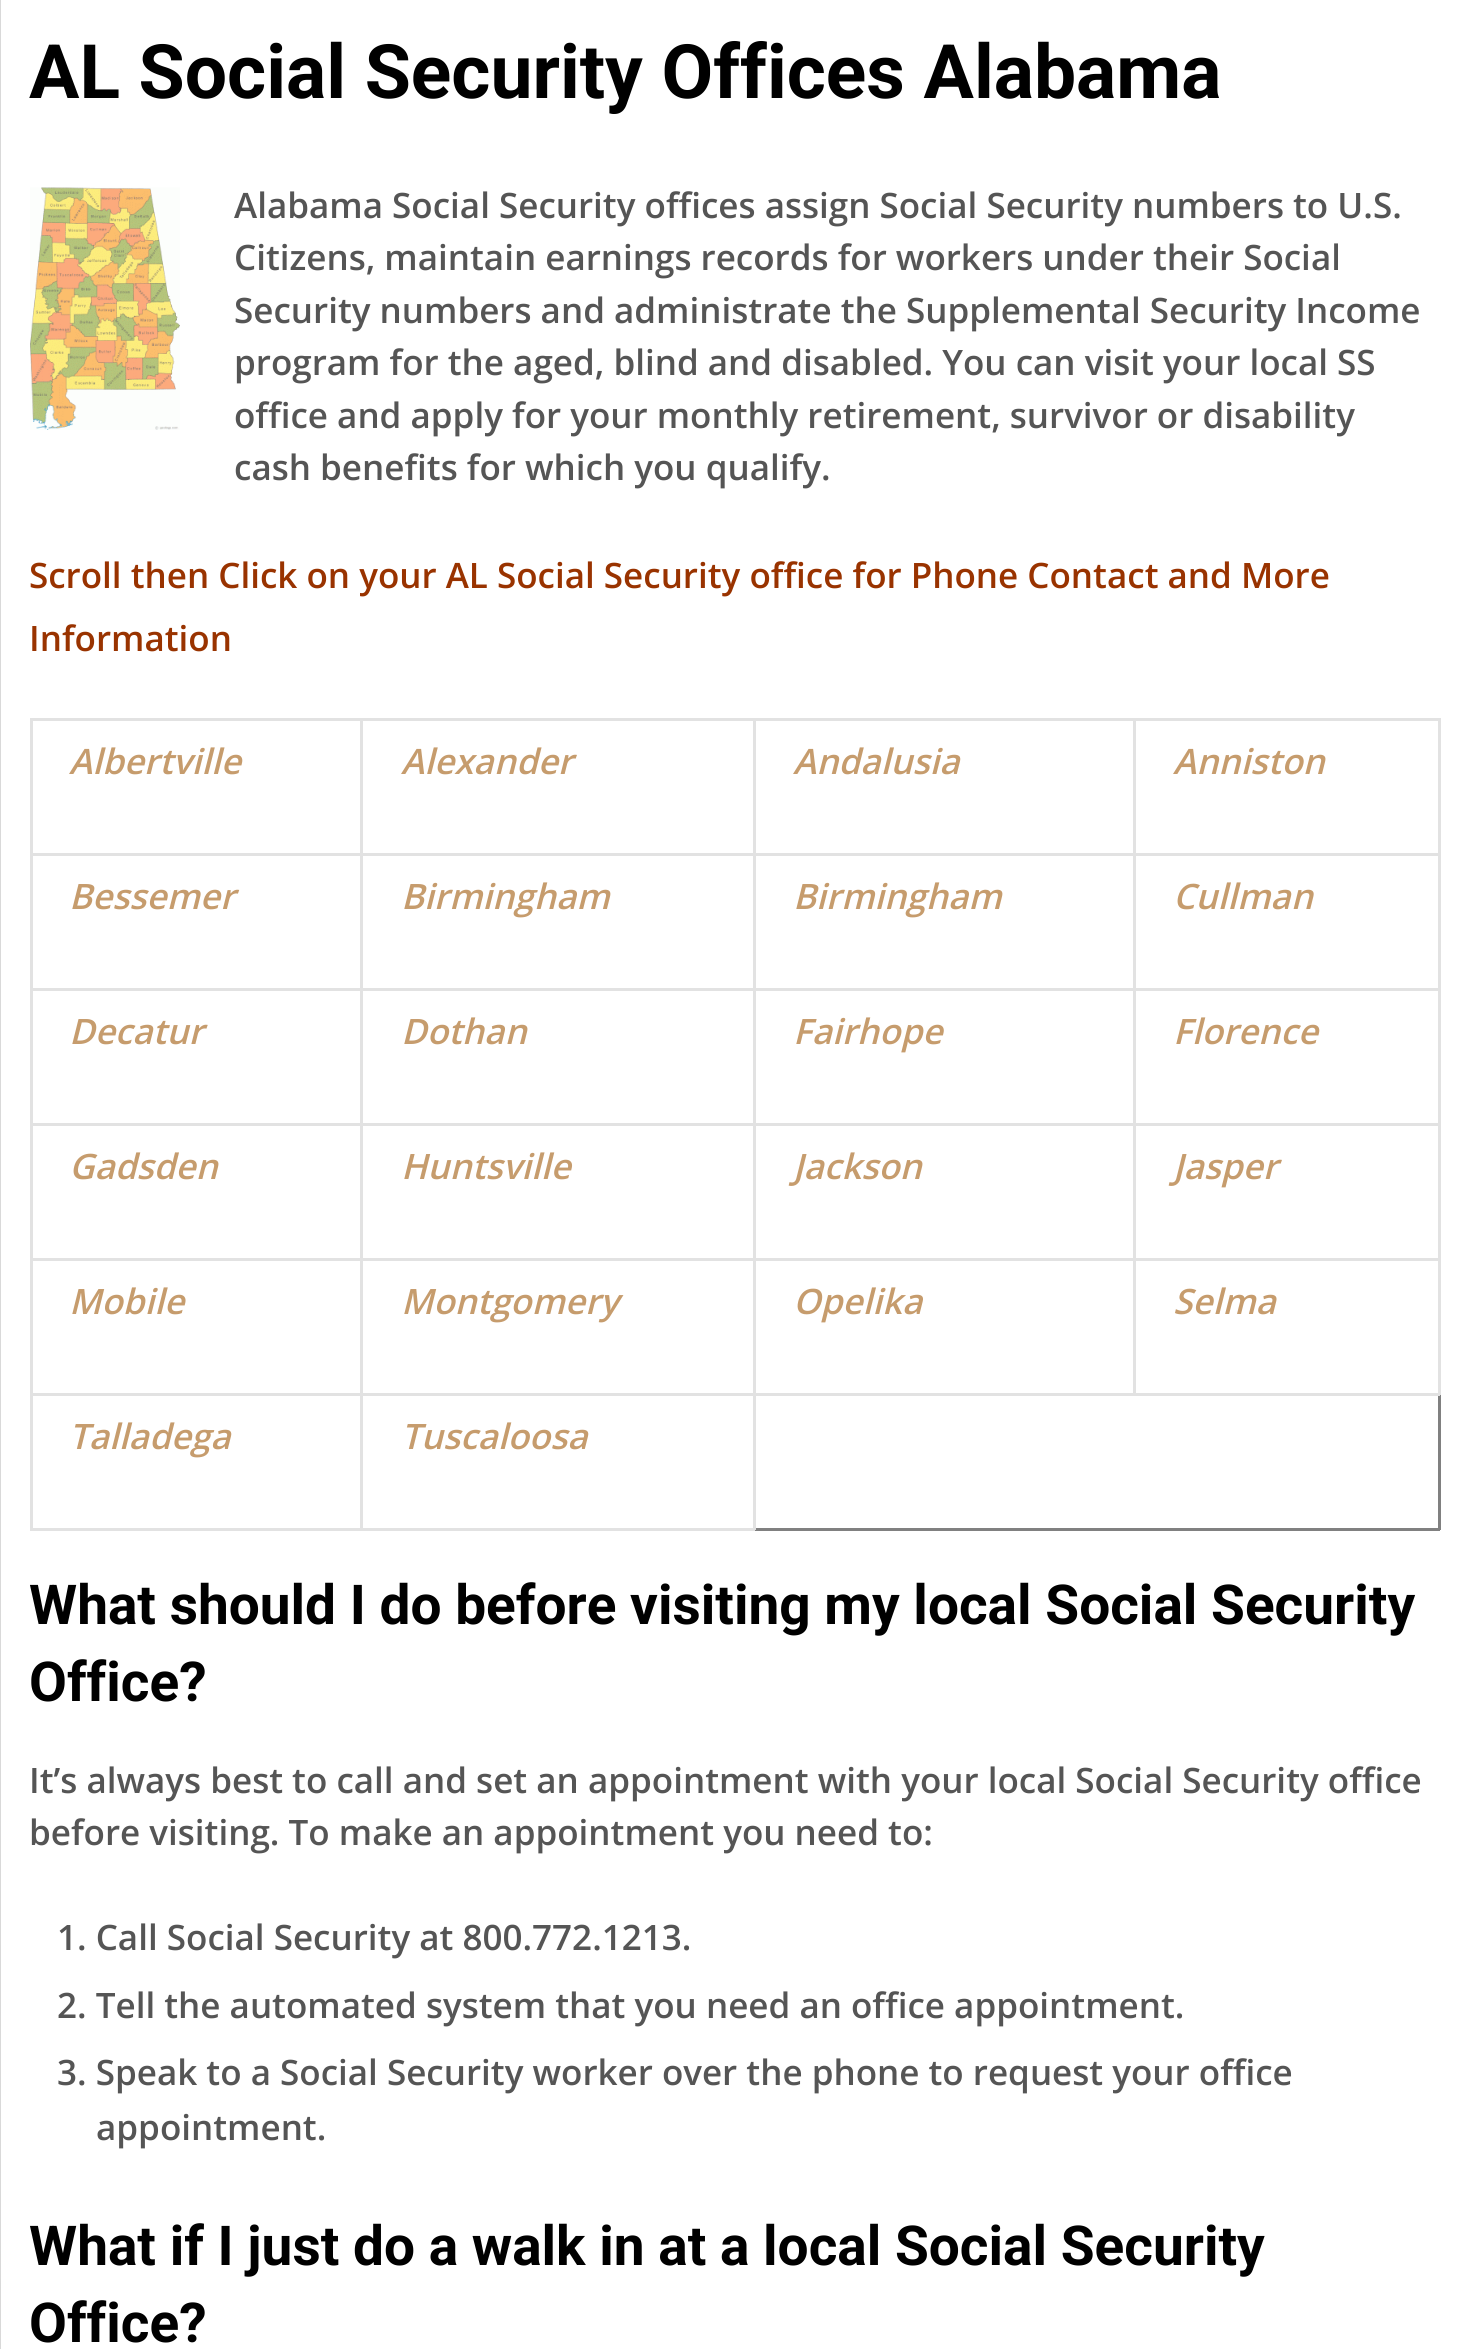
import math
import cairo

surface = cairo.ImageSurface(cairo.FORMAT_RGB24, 1470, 2349)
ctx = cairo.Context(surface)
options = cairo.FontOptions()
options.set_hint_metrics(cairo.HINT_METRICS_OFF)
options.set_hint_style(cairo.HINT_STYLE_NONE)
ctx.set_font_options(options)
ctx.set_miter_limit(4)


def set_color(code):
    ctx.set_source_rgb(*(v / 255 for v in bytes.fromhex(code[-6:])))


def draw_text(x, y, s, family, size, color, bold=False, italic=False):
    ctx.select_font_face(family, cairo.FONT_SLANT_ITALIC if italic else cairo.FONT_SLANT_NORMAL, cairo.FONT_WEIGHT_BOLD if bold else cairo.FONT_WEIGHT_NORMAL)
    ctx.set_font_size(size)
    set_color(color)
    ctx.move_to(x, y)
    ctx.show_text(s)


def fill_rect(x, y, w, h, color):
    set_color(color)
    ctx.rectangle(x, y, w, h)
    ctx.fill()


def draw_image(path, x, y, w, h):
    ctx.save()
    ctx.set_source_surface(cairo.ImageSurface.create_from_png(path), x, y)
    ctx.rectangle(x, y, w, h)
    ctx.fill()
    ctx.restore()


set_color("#ffffff")
ctx.paint()
fill_rect(0, 0, 1, 2349, "#d9d9d9")
draw_text(29, 98, "AL Social Security Offices Alabama", "Roboto", 75, "#000000", bold=True)
draw_image("assets/img1.png", 30, 187, 150, 243)
draw_text(234, 218, "Alabama Social Security offices assign Social Security numbers to U.S.", "Open Sans SemiBold", 35, "#555555")
draw_text(234, 270, "Citizens, maintain earnings records for workers under their Social", "Open Sans SemiBold", 35, "#555555")
draw_text(234, 323, "Security numbers and administrate the Supplemental Security Income", "Open Sans SemiBold", 35, "#555555")
draw_text(234, 375, "program for the aged, blind and disabled. You can visit your local SS", "Open Sans SemiBold", 35, "#555555")
draw_text(234, 428, "office and apply for your monthly retirement, survivor or disability", "Open Sans SemiBold", 35, "#555555")
draw_text(234, 480, "cash benefits for which you qualify.", "Open Sans SemiBold", 35, "#555555")
draw_text(29, 588, "Scroll then Click on your AL Social Security office for Phone Contact and More", "Open Sans SemiBold", 35, "#993300")
draw_text(29, 651, "Information", "Open Sans SemiBold", 35, "#993300")
fill_rect(1438, 1395, 3, 135, "#808080")
fill_rect(755, 1528, 685, 3, "#808080")
fill_rect(1133, 718, 307, 3, "#e2e2e2")
fill_rect(1133, 853, 307, 3, "#e2e2e2")
fill_rect(1133, 988, 307, 3, "#e2e2e2")
fill_rect(1133, 1123, 307, 3, "#e2e2e2")
fill_rect(1133, 1258, 307, 3, "#e2e2e2")
fill_rect(1438, 1258, 3, 137, "#e2e2e2")
fill_rect(1133, 1393, 307, 3, "#e2e2e2")
fill_rect(1133, 1258, 3, 137, "#e2e2e2")
fill_rect(753, 1258, 382, 3, "#e2e2e2")
fill_rect(1133, 1123, 3, 137, "#e2e2e2")
fill_rect(753, 1123, 382, 3, "#e2e2e2")
fill_rect(1133, 988, 3, 137, "#e2e2e2")
fill_rect(753, 988, 382, 3, "#e2e2e2")
fill_rect(1133, 853, 3, 137, "#e2e2e2")
fill_rect(753, 853, 382, 3, "#e2e2e2")
fill_rect(1133, 718, 3, 137, "#e2e2e2")
fill_rect(753, 718, 382, 3, "#e2e2e2")
fill_rect(360, 1393, 395, 3, "#e2e2e2")
fill_rect(753, 1393, 3, 137, "#e2e2e2")
fill_rect(753, 1393, 382, 3, "#e2e2e2")
fill_rect(753, 1258, 3, 137, "#e2e2e2")
fill_rect(360, 1258, 395, 3, "#e2e2e2")
fill_rect(753, 1123, 3, 137, "#e2e2e2")
fill_rect(360, 1123, 395, 3, "#e2e2e2")
fill_rect(753, 988, 3, 137, "#e2e2e2")
fill_rect(360, 988, 395, 3, "#e2e2e2")
fill_rect(753, 853, 3, 137, "#e2e2e2")
fill_rect(360, 853, 395, 3, "#e2e2e2")
fill_rect(753, 718, 3, 137, "#e2e2e2")
fill_rect(360, 718, 395, 3, "#e2e2e2")
fill_rect(360, 1528, 395, 3, "#e2e2e2")
fill_rect(360, 1393, 3, 137, "#e2e2e2")
fill_rect(30, 1393, 333, 3, "#e2e2e2")
fill_rect(360, 1258, 3, 137, "#e2e2e2")
fill_rect(30, 1258, 333, 3, "#e2e2e2")
fill_rect(360, 1123, 3, 137, "#e2e2e2")
fill_rect(30, 1123, 333, 3, "#e2e2e2")
fill_rect(360, 988, 3, 137, "#e2e2e2")
fill_rect(30, 988, 333, 3, "#e2e2e2")
fill_rect(360, 853, 3, 137, "#e2e2e2")
fill_rect(30, 853, 333, 3, "#e2e2e2")
fill_rect(360, 718, 3, 137, "#e2e2e2")
fill_rect(30, 718, 333, 3, "#e2e2e2")
fill_rect(30, 1528, 333, 3, "#e2e2e2")
fill_rect(30, 1393, 3, 137, "#e2e2e2")
fill_rect(30, 1258, 3, 137, "#e2e2e2")
fill_rect(30, 1123, 3, 137, "#e2e2e2")
fill_rect(30, 988, 3, 137, "#e2e2e2")
fill_rect(30, 853, 3, 137, "#e2e2e2")
fill_rect(30, 718, 3, 137, "#e2e2e2")
draw_text(69, 774, "Albertville", "Open Sans SemiBold", 35, "#c69c6d", italic=True)
draw_text(401, 774, "Alexander", "Open Sans SemiBold", 35, "#c69c6d", italic=True)
draw_text(793, 774, "Andalusia", "Open Sans SemiBold", 35, "#c69c6d", italic=True)
fill_rect(1438, 1123, 3, 137, "#e2e2e2")
fill_rect(1438, 988, 3, 137, "#e2e2e2")
fill_rect(1438, 853, 3, 137, "#e2e2e2")
fill_rect(1438, 718, 3, 137, "#e2e2e2")
draw_text(1173, 774, "Anniston", "Open Sans SemiBold", 35, "#c69c6d", italic=True)
draw_text(69, 909, "Bessemer", "Open Sans SemiBold", 35, "#c69c6d", italic=True)
draw_text(401, 909, "Birmingham", "Open Sans SemiBold", 35, "#c69c6d", italic=True)
draw_text(793, 909, "Birmingham", "Open Sans SemiBold", 35, "#c69c6d", italic=True)
draw_text(1173, 909, "Cullman", "Open Sans SemiBold", 35, "#c69c6d", italic=True)
draw_text(69, 1044, "Decatur", "Open Sans SemiBold", 35, "#c69c6d", italic=True)
draw_text(401, 1044, "Dothan", "Open Sans SemiBold", 35, "#c69c6d", italic=True)
draw_text(793, 1044, "Fairhope", "Open Sans SemiBold", 35, "#c69c6d", italic=True)
draw_text(1173, 1044, "Florence", "Open Sans SemiBold", 35, "#c69c6d", italic=True)
draw_text(69, 1179, "Gadsden", "Open Sans SemiBold", 35, "#c69c6d", italic=True)
draw_text(401, 1179, "Huntsville", "Open Sans SemiBold", 35, "#c69c6d", italic=True)
draw_text(793, 1179, "Jackson", "Open Sans SemiBold", 35, "#c69c6d", italic=True)
draw_text(1173, 1179, "Jasper", "Open Sans SemiBold", 35, "#c69c6d", italic=True)
draw_text(69, 1314, "Mobile", "Open Sans SemiBold", 35, "#c69c6d", italic=True)
draw_text(401, 1314, "Montgomery", "Open Sans SemiBold", 35, "#c69c6d", italic=True)
draw_text(793, 1314, "Opelika", "Open Sans SemiBold", 35, "#c69c6d", italic=True)
draw_text(1173, 1314, "Selma", "Open Sans SemiBold", 35, "#c69c6d", italic=True)
draw_text(69, 1449, "Talladega", "Open Sans SemiBold", 35, "#c69c6d", italic=True)
draw_text(401, 1449, "Tuscaloosa", "Open Sans SemiBold", 35, "#c69c6d", italic=True)
draw_text(29, 1624, "What should I do before visiting my local Social Security", "Roboto", 55, "#000000", bold=True)
draw_text(29, 1701, "Office?", "Roboto", 55, "#000000", bold=True)
draw_text(29, 1793, "It’s always best to call and set an appointment with your local Social Security office", "Open Sans SemiBold", 35, "#555555")
draw_text(29, 1845, "before visiting. To make an appointment you need to:", "Open Sans SemiBold", 35, "#555555")
draw_text(57, 1950, "1. Call Social Security at 800.772.1213.", "Open Sans SemiBold", 35, "#555555")
draw_text(57, 2018, "2. Tell the automated system that you need an office appointment.", "Open Sans SemiBold", 35, "#555555")
draw_text(57, 2085, "3. Speak to a Social Security worker over the phone to request your office", "Open Sans SemiBold", 35, "#555555")
draw_text(96, 2140, "appointment.", "Open Sans SemiBold", 35, "#555555")
draw_text(29, 2265, "What if I just do a walk in at a local Social Security", "Roboto", 55, "#000000", bold=True)
draw_text(29, 2342, "Office?", "Roboto", 55, "#000000", bold=True)
surface.write_to_png("output.png")
